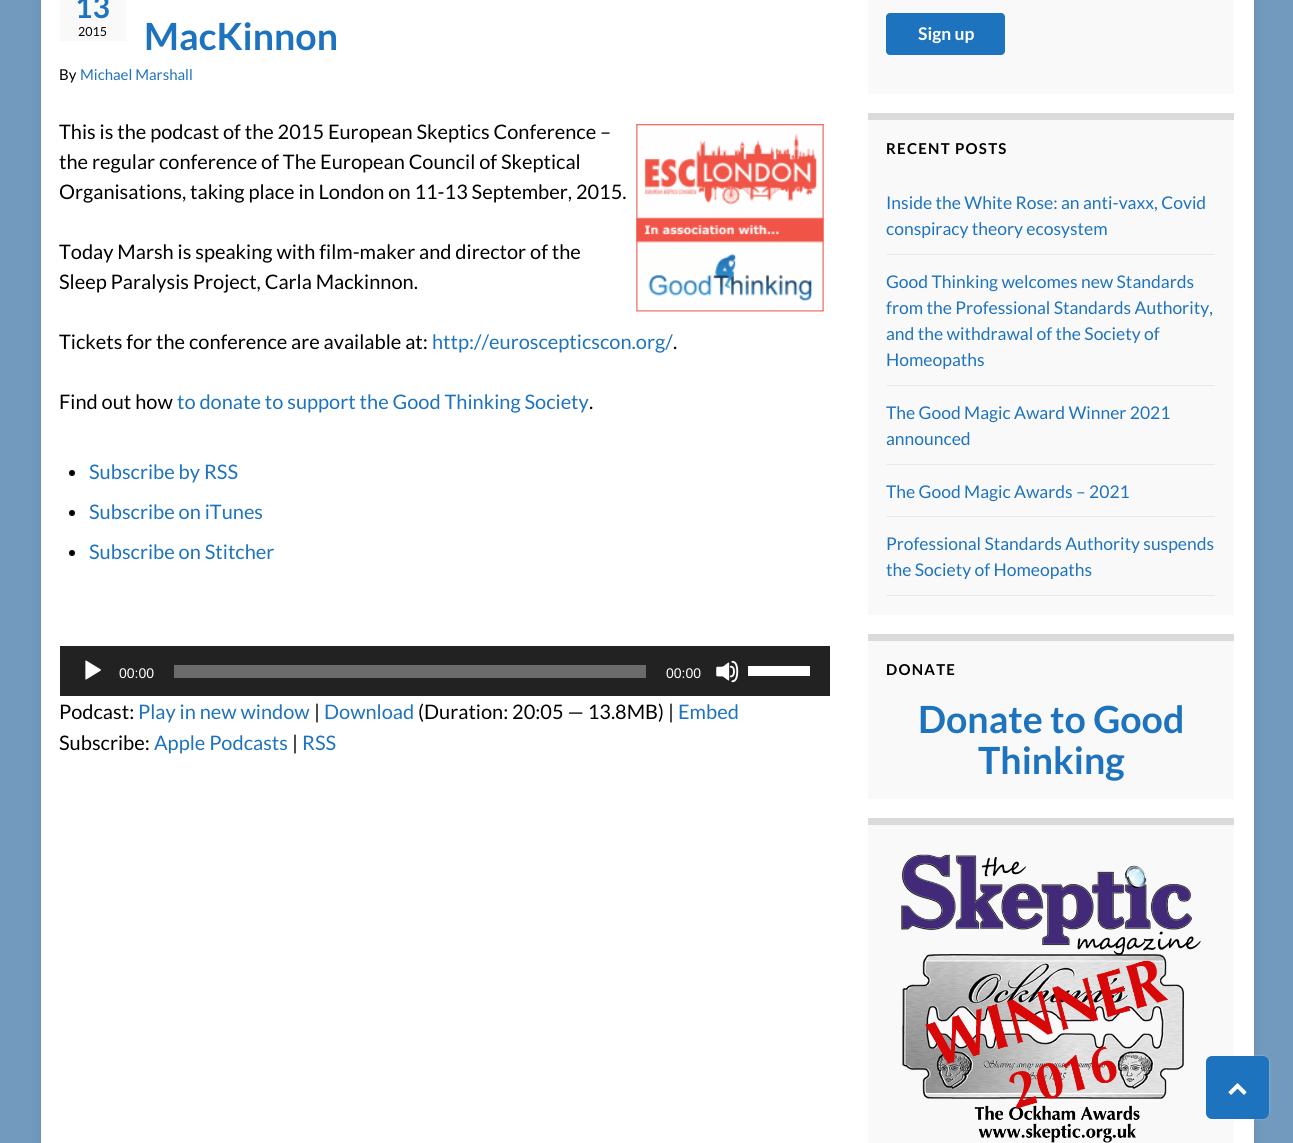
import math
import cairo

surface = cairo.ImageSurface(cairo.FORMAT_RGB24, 1293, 1143)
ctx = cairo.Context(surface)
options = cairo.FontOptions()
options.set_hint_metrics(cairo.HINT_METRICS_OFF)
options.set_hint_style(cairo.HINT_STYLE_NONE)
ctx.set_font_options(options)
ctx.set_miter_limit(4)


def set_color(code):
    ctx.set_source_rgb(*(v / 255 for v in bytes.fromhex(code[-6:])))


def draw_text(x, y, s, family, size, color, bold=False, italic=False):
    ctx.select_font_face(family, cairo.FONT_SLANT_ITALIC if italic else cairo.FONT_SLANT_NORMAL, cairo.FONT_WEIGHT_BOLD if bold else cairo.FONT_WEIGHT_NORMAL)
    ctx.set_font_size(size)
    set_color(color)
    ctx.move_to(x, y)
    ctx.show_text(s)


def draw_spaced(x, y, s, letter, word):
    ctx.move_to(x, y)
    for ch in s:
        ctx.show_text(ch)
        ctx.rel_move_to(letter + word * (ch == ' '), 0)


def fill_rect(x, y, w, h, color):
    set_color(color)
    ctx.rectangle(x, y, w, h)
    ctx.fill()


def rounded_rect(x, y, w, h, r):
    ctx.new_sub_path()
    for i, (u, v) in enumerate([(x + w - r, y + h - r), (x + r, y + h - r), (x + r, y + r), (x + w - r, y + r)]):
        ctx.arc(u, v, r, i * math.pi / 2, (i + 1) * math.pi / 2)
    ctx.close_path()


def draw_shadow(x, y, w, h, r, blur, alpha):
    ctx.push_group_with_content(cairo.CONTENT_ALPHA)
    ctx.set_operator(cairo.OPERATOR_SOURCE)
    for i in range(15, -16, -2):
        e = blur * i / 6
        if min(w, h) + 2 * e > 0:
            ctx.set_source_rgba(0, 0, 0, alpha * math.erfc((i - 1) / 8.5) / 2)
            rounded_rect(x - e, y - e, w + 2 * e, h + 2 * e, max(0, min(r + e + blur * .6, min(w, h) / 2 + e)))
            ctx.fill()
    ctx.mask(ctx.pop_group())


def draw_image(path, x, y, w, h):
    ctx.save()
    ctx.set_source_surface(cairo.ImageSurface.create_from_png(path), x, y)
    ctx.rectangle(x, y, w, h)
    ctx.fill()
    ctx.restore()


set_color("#729abf")
ctx.paint()
set_color("#000000")
draw_shadow(41, -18, 1213, 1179, 0, 6, 0.1)
fill_rect(41, 0, 1213, 1143, "#ffffff")
fill_rect(60, 0, 66, 41, "#f9f9f9")
draw_text(75, 18, "13", "Lato", 30, "#1e73be", bold=True)
draw_text(78, 36, "2015", "Lato", 12.5, "#000000")
draw_text(144, 50, "MacKinnon", "Lato", 37.5, "#1e73be", bold=True)
draw_text(59, 80, "By", "Lato", 15, "#000000")
draw_text(80, 80, "Michael Marshall", "Lato", 15, "#1e73be")
draw_text(59, 139, "This is the podcast of the 2015 European Skeptics Conference –", "Lato", 20, "#000000")
draw_image("assets/img1.png", 636, 124, 188, 188)
draw_text(59, 169, "the regular conference of The European Council of Skeptical", "Lato", 20, "#000000")
draw_text(59, 199, "Organisations, taking place in London on 11-13 September, 2015.", "Lato", 20, "#000000")
draw_text(59, 259, "Today Marsh is speaking with film-maker and director of the", "Lato", 20, "#000000")
draw_text(59, 289, "Sleep Paralysis Project, Carla Mackinnon.", "Lato", 20, "#000000")
draw_text(59, 349, "Tickets for the conference are available at:", "Lato", 20, "#000000")
draw_text(432, 349, "http://euroscepticscon.org/", "Lato", 20, "#1e73be")
draw_text(673, 349, ".", "Lato", 20, "#000000")
draw_text(59, 409, "Find out how", "Lato", 20, "#000000")
draw_text(177, 409, "to donate to support the Good Thinking Society", "Lato", 20, "#1e73be")
draw_text(589, 409, ".", "Lato", 20, "#000000")
ctx.new_path()
ctx.arc(72, 473, 3, 0, 2 * math.pi)
ctx.fill()
draw_text(89, 479, "Subscribe by RSS", "Lato", 20, "#1e73be")
set_color("#000000")
ctx.new_path()
ctx.arc(72, 513, 3, 0, 2 * math.pi)
ctx.fill()
draw_text(89, 519, "Subscribe on iTunes", "Lato", 20, "#1e73be")
set_color("#000000")
ctx.new_path()
ctx.arc(72, 553, 3, 0, 2 * math.pi)
ctx.fill()
draw_text(89, 559, "Subscribe on Stitcher", "Lato", 20, "#1e73be")
fill_rect(60, 646, 770, 50, "#222222")
draw_image("assets/img2.png", 85, 660, 16, 20)
draw_text(119, 678, "00:00", "Liberation Sans", 14, "#ffffff")
fill_rect(174, 665, 472, 13, "#6b6b6b")
draw_text(666, 678, "00:00", "Liberation Sans", 14, "#ffffff")
draw_image("assets/img3.png", 716, 660, 23, 23)
fill_rect(748, 666, 62, 10, "#ffffff")
draw_text(59, 719, "Podcast:", "Lato", 20, "#000000")
draw_text(138, 719, "Play in new window", "Lato", 20, "#1e73be")
draw_text(314, 719, "|", "Lato", 20, "#000000")
draw_text(324, 719, "Download", "Lato", 20, "#1e73be")
draw_text(418, 719, "(Duration: 20:05 — 13.8MB) |", "Lato", 20, "#000000")
draw_text(678, 719, "Embed", "Lato", 20, "#1e73be")
draw_text(59, 750, "Subscribe:", "Lato", 20, "#000000")
draw_text(154, 750, "Apple Podcasts", "Lato", 20, "#1e73be")
draw_text(292, 750, "|", "Lato", 20, "#000000")
draw_text(302, 750, "RSS", "Lato", 20, "#1e73be")
fill_rect(868, 0, 366, 94, "#f9f9f9")
set_color("#1e73be")
rounded_rect(886, 13, 119, 42, 4)
ctx.fill()
draw_text(918, 40, "Sign up", "Lato", 17.5, "#ffffff", bold=True)
fill_rect(868, 120, 366, 495, "#f9f9f9")
fill_rect(868, 113, 366, 7, "#dbdbdb")
ctx.set_font_size(15)
set_color("#000000")
draw_spaced(886, 154, "RECENT POSTS", 1.25, 0)
fill_rect(886, 254, 329, 1, "#e9e9e9")
draw_text(886, 209, "Inside the White Rose: an anti-vaxx, Covid", "Lato", 17.5, "#1e73be")
draw_text(886, 235, "conspiracy theory ecosystem", "Lato", 17.5, "#1e73be")
fill_rect(886, 385, 329, 1, "#e9e9e9")
draw_text(886, 288, "Good Thinking welcomes new Standards", "Lato", 17.5, "#1e73be")
draw_text(886, 314, "from the Professional Standards Authority,", "Lato", 17.5, "#1e73be")
draw_text(886, 340, "and the withdrawal of the Society of", "Lato", 17.5, "#1e73be")
draw_text(886, 366, "Homeopaths", "Lato", 17.5, "#1e73be")
fill_rect(886, 464, 329, 1, "#e9e9e9")
draw_text(886, 419, "The Good Magic Award Winner 2021", "Lato", 17.5, "#1e73be")
draw_text(886, 445, "announced", "Lato", 17.5, "#1e73be")
fill_rect(886, 516, 329, 1, "#e9e9e9")
draw_text(886, 498, "The Good Magic Awards – 2021", "Lato", 17.5, "#1e73be")
fill_rect(886, 595, 329, 1, "#e9e9e9")
draw_text(886, 550, "Professional Standards Authority suspends", "Lato", 17.5, "#1e73be")
draw_text(886, 576, "the Society of Homeopaths", "Lato", 17.5, "#1e73be")
fill_rect(868, 641, 366, 158, "#f9f9f9")
fill_rect(868, 634, 366, 7, "#dbdbdb")
ctx.select_font_face("Lato", cairo.FONT_SLANT_NORMAL, cairo.FONT_WEIGHT_BOLD)
ctx.set_font_size(15)
set_color("#000000")
draw_spaced(886, 675, "DONATE", 1.25, 0)
draw_text(918, 733, "Donate to Good", "Lato", 37.5, "#1e73be", bold=True)
draw_text(978, 774, "Thinking", "Lato", 37.5, "#1e73be", bold=True)
fill_rect(868, 825, 366, 318, "#f9f9f9")
fill_rect(868, 818, 366, 7, "#dbdbdb")
draw_image("assets/img4.png", 901, 854, 300, 289)
set_color("#ffffff")
draw_shadow(1206, 1056, 63, 63, 6, 1, 0.3)
set_color("#1e73be")
rounded_rect(1206, 1056, 63, 63, 6)
ctx.fill()
draw_image("assets/img5.png", 1228, 1083, 19, 12)
surface.write_to_png("output.png")
